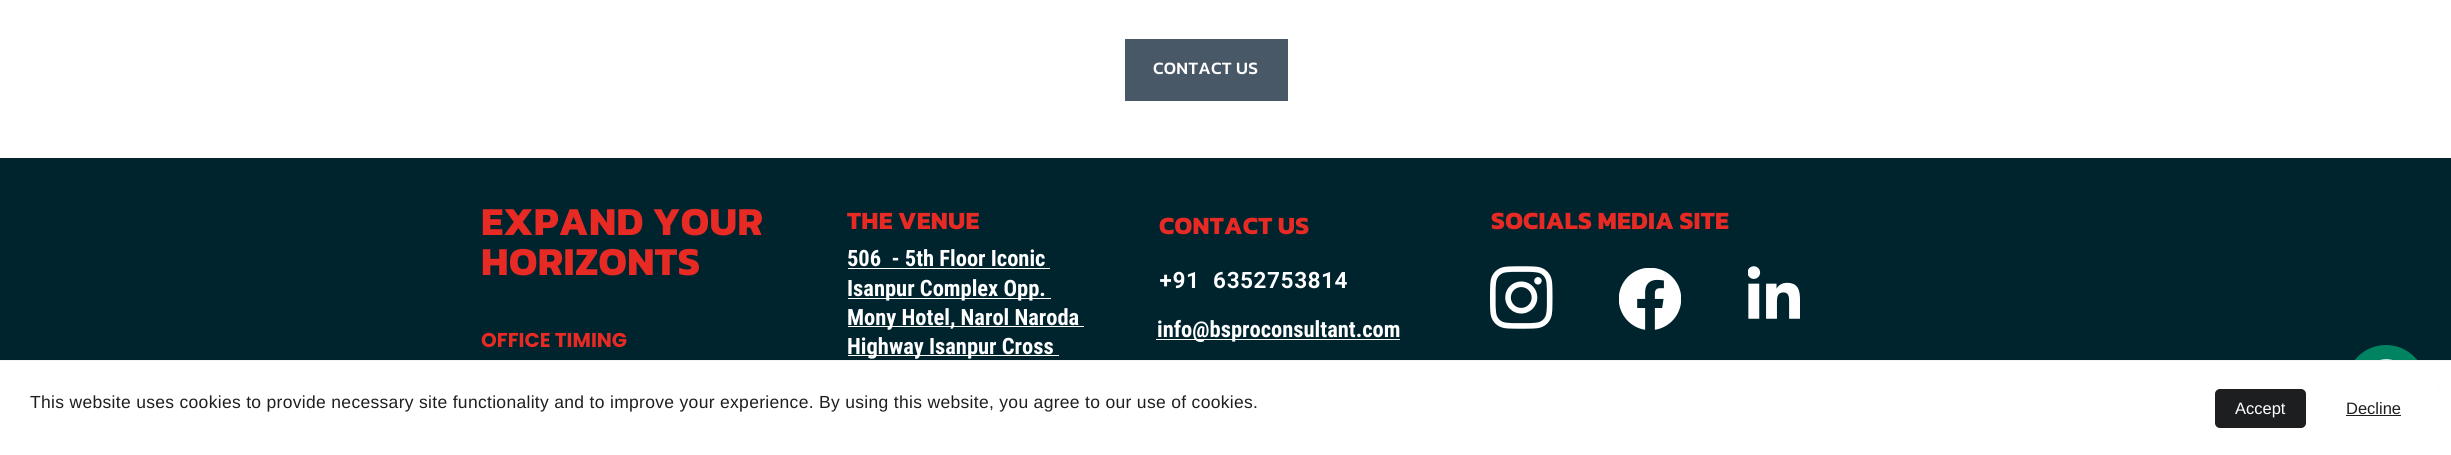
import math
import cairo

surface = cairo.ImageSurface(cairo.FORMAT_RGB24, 2451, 455)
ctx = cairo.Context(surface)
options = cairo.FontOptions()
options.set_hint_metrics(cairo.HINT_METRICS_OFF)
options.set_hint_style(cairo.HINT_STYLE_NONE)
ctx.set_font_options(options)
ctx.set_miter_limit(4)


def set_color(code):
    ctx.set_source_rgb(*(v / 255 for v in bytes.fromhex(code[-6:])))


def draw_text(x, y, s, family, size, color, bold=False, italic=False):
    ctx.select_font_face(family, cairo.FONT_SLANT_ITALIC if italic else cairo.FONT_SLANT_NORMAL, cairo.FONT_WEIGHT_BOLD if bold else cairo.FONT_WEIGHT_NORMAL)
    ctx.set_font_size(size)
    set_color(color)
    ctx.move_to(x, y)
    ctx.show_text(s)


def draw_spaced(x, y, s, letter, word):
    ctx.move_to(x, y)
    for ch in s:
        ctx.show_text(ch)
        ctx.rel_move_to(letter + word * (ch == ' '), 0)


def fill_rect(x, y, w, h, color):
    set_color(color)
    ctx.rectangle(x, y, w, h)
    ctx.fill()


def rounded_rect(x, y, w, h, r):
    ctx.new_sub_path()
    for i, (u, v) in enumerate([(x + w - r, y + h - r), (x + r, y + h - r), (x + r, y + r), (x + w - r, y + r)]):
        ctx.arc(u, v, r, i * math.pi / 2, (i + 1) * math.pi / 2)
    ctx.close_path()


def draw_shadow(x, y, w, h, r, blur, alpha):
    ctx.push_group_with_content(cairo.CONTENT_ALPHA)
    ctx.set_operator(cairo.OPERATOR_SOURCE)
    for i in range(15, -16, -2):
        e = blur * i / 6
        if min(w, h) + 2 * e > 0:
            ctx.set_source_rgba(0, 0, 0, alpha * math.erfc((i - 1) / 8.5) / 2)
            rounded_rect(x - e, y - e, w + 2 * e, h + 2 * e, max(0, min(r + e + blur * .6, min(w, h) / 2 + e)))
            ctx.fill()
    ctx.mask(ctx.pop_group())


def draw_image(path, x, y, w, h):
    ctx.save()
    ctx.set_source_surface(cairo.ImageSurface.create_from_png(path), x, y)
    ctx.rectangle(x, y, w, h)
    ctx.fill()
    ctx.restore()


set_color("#ffffff")
ctx.paint()
fill_rect(1125, 39, 163, 62, "#495867")
ctx.select_font_face("Kanit Medium")
ctx.set_font_size(17.5)
set_color("#ffffff")
draw_spaced(1153, 74, "CONTACT US", 0.25, 0)
fill_rect(0, 158, 2451, 202, "#00242e")
ctx.select_font_face("Kanit", cairo.FONT_SLANT_NORMAL, cairo.FONT_WEIGHT_BOLD)
ctx.set_font_size(40)
set_color("#e82a24")
draw_spaced(481, 235, "EXPAND YOUR", 0.4, 0)
draw_spaced(481, 275, "HORIZONTS", 0.4, 0)
ctx.set_font_size(25)
draw_spaced(847, 229, "THE VENUE", 0.25, 0)
draw_spaced(1159, 234, "CONTACT US", 0.25, 0)
draw_spaced(1491, 229, "SOCIALS MEDIA SITE", 0.25, 0)
draw_text(847, 266, "506  - 5th Floor Iconic", "Roboto Condensed", 22.5, "#ffffff", bold=True)
fill_rect(848, 268, 202, 1, "#ffffff")
fill_rect(848, 298, 203, 1, "#ffffff")
draw_text(847, 296, "Isanpur Complex Opp.", "Roboto Condensed", 22.5, "#ffffff", bold=True)
fill_rect(848, 326, 236, 1, "#ffffff")
draw_text(847, 325, "Mony Hotel, Narol Naroda", "Roboto Condensed", 22.5, "#ffffff", bold=True)
fill_rect(848, 355, 211, 1, "#ffffff")
draw_text(847, 354, "Highway Isanpur Cross", "Roboto Condensed", 22.5, "#ffffff", bold=True)
draw_text(1159, 288, "+91 6352753814", "Roboto Mono", 22.5, "#ffffff", bold=True)
draw_image("assets/img1.png", 1490, 266, 63, 63)
draw_image("assets/img2.png", 1619, 268, 62, 62)
draw_image("assets/img3.png", 1748, 266, 52, 53)
draw_text(481, 347, "OFFICE TIMING", "Poppins", 20, "#e82a24", bold=True)
fill_rect(1156, 339, 244, 1, "#ffffff")
draw_text(1157, 337, "info@bsproconsultant.com", "Roboto Condensed", 22.5, "#ffffff", bold=True)
set_color("#000000")
draw_shadow(2346, 350, 80, 80, 40, 7.5, 0.15)
fill_rect(2335, 361, 102, 80, "#ffffff")
fill_rect(0, 360, 2451, 1, "#f2f3f6")
ctx.select_font_face("Liberation Sans")
ctx.set_font_size(17.5)
set_color("#1d1e20")
draw_spaced(30, 408, "This website uses cookies to provide necessary site functionality and to improve your experience. By using this website, you agree to our use of cookies.", 0.31, 0)
rounded_rect(2215, 389, 91, 39, 5)
ctx.fill()
draw_text(2235, 414, "Accept", "Liberation Sans", 16.5, "#ffffff")
draw_text(2346, 414, "Decline", "Liberation Sans", 16.5, "#1d1e20")
fill_rect(2346, 415, 55, 1, "#1d1e20")
draw_image("assets/img4.png", 2354, 345, 64, 15)
surface.write_to_png("output.png")
